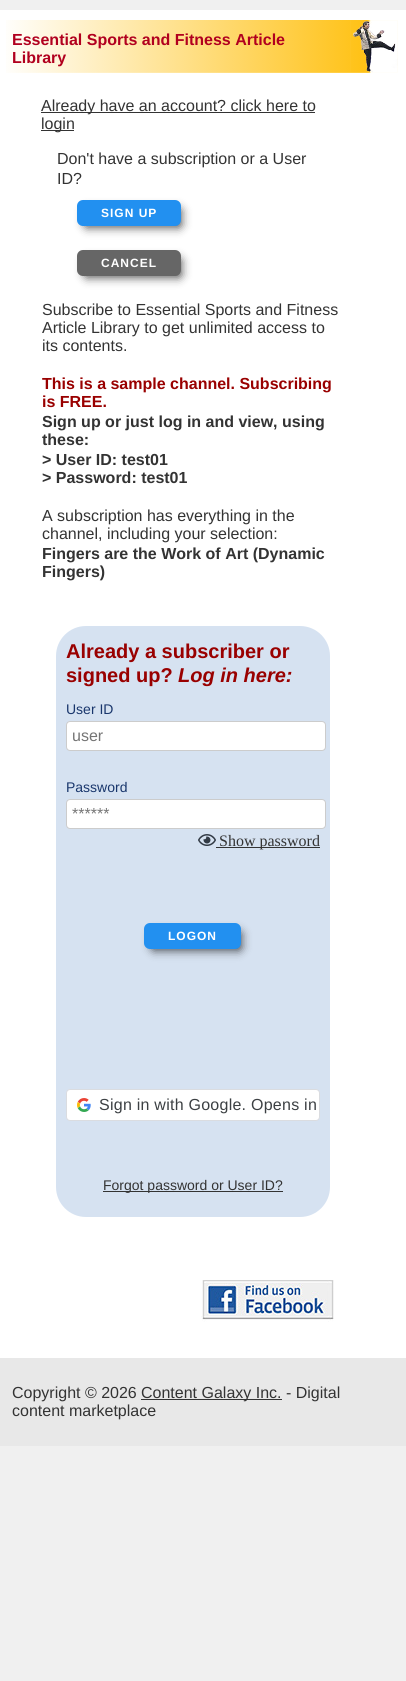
import math
import cairo

surface = cairo.ImageSurface(cairo.FORMAT_RGB24, 406, 1681)
ctx = cairo.Context(surface)
options = cairo.FontOptions()
options.set_hint_metrics(cairo.HINT_METRICS_OFF)
options.set_hint_style(cairo.HINT_STYLE_NONE)
ctx.set_font_options(options)
ctx.set_miter_limit(4)


def set_color(code):
    ctx.set_source_rgb(*(v / 255 for v in bytes.fromhex(code[-6:])))


def draw_text(x, y, s, family, size, color, bold=False, italic=False):
    ctx.select_font_face(family, cairo.FONT_SLANT_ITALIC if italic else cairo.FONT_SLANT_NORMAL, cairo.FONT_WEIGHT_BOLD if bold else cairo.FONT_WEIGHT_NORMAL)
    ctx.set_font_size(size)
    set_color(color)
    ctx.move_to(x, y)
    ctx.show_text(s)


def draw_spaced(x, y, s, letter, word):
    ctx.move_to(x, y)
    for ch in s:
        ctx.show_text(ch)
        ctx.rel_move_to(letter + word * (ch == ' '), 0)


def fill_rect(x, y, w, h, color):
    set_color(color)
    ctx.rectangle(x, y, w, h)
    ctx.fill()


def rounded_rect(x, y, w, h, r):
    ctx.new_sub_path()
    for i, (u, v) in enumerate([(x + w - r, y + h - r), (x + r, y + h - r), (x + r, y + r), (x + w - r, y + r)]):
        ctx.arc(u, v, r, i * math.pi / 2, (i + 1) * math.pi / 2)
    ctx.close_path()


def draw_shadow(x, y, w, h, r, blur, alpha):
    ctx.push_group_with_content(cairo.CONTENT_ALPHA)
    ctx.set_operator(cairo.OPERATOR_SOURCE)
    for i in range(15, -16, -2):
        e = blur * i / 6
        if min(w, h) + 2 * e > 0:
            ctx.set_source_rgba(0, 0, 0, alpha * math.erfc((i - 1) / 8.5) / 2)
            rounded_rect(x - e, y - e, w + 2 * e, h + 2 * e, max(0, min(r + e + blur * .6, min(w, h) / 2 + e)))
            ctx.fill()
    ctx.mask(ctx.pop_group())


def draw_image(path, x, y, w, h):
    ctx.save()
    ctx.set_source_surface(cairo.ImageSurface.create_from_png(path), x, y)
    ctx.rectangle(x, y, w, h)
    ctx.fill()
    ctx.restore()


set_color("#f0f0f0")
ctx.paint()
fill_rect(0, 10, 406, 1348, "#ffffff")
draw_image("assets/img1.png", 6, 20, 392, 53)
draw_text(12, 45, "Essential Sports and Fitness Article", "Liberation Sans", 16, "#b1001f", bold=True)
draw_text(12, 63, "Library", "Liberation Sans", 16, "#b1001f", bold=True)
fill_rect(41, 112, 274, 1, "#333333")
draw_text(41, 111, "Already have an account? click here to", "Liberation Sans", 16, "#333333")
fill_rect(41, 130, 33, 1, "#333333")
draw_text(41, 129, "login", "Liberation Sans", 16, "#333333")
draw_text(57, 164, "Don't have a subscription or a User", "Liberation Sans", 16, "#333333")
draw_text(57, 184, "ID?", "Liberation Sans", 16, "#333333")
set_color("#000000")
draw_shadow(85, 209, 96, 18, 2, 5, 0.74)
set_color("#2290f0")
rounded_rect(77, 200, 104, 26, 6)
ctx.fill()
ctx.select_font_face("Liberation Sans", cairo.FONT_SLANT_NORMAL, cairo.FONT_WEIGHT_BOLD)
ctx.set_font_size(12)
set_color("#ffffff")
draw_spaced(101, 217, "SIGN UP", 1, 0)
set_color("#000000")
draw_shadow(85, 259, 96, 18, 2, 5, 0.74)
set_color("#666666")
rounded_rect(77, 250, 104, 26, 6)
ctx.fill()
set_color("#ffffff")
draw_spaced(101, 267, "CANCEL", 1, 0)
draw_text(42, 315, "Subscribe to Essential Sports and Fitness", "Liberation Sans", 16, "#333333")
draw_text(42, 333, "Article Library to get unlimited access to", "Liberation Sans", 16, "#333333")
draw_text(42, 351, "its contents.", "Liberation Sans", 16, "#333333")
draw_text(42, 389, "This is a sample channel. Subscribing", "Liberation Sans", 16, "#990000", bold=True)
draw_text(42, 407, "is FREE.", "Liberation Sans", 16, "#990000", bold=True)
draw_text(42, 427, "Sign up or just log in and view, using", "Liberation Sans", 16, "#333333", bold=True)
draw_text(42, 445, "these:", "Liberation Sans", 16, "#333333", bold=True)
draw_text(42, 465, "> User ID: test01", "Liberation Sans", 16, "#333333", bold=True)
draw_text(42, 483, "> Password: test01", "Liberation Sans", 16, "#333333", bold=True)
draw_text(42, 521, "A subscription has everything in the", "Liberation Sans", 16, "#333333")
draw_text(42, 539, "channel, including your selection:", "Liberation Sans", 16, "#333333")
draw_text(42, 559, "Fingers are the Work of Art (Dynamic", "Liberation Sans", 16, "#333333", bold=True)
draw_text(42, 577, "Fingers)", "Liberation Sans", 16, "#333333", bold=True)
set_color("#d6e2f1")
rounded_rect(56, 626, 274, 591, 30)
ctx.fill()
draw_text(66, 658, "Already a subscriber or", "Liberation Sans", 20, "#990000", bold=True)
draw_text(66, 682, "signed up?", "Liberation Sans", 20, "#990000", bold=True)
draw_text(178, 682, "Log in here:", "Liberation Sans", 20, "#990000", bold=True, italic=True)
draw_text(66, 714, "User ID", "Liberation Sans", 14, "#19366c")
set_color("#ffffff")
rounded_rect(66.5, 721.5, 259, 29, 3.5)
ctx.fill_preserve()
set_color("#cccccc")
ctx.set_line_width(1)
ctx.stroke()
draw_text(72, 741, "user", "Liberation Sans", 16, "#757575")
draw_text(66, 792, "Password", "Liberation Sans", 14, "#19366c")
set_color("#ffffff")
rounded_rect(66.5, 799.5, 259, 29, 3.5)
ctx.fill_preserve()
set_color("#cccccc")
ctx.stroke()
draw_text(72, 819, "******", "Liberation Sans", 16, "#757575")
draw_image("assets/img2.png", 198, 834, 18, 12)
fill_rect(216, 847, 104, 1, "#333333")
draw_text(219, 846, "Show password", "Liberation Serif", 16, "#333333")
set_color("#000000")
draw_shadow(152, 932, 89, 18, 2, 5, 0.74)
set_color("#2290f0")
rounded_rect(144, 923, 97, 26, 6)
ctx.fill()
ctx.select_font_face("Liberation Sans", cairo.FONT_SLANT_NORMAL, cairo.FONT_WEIGHT_BOLD)
ctx.set_font_size(12)
set_color("#ffffff")
draw_spaced(168, 940, "LOGON", 1, 0)
rounded_rect(66.5, 1089.5, 253, 31, 3.5)
ctx.fill_preserve()
set_color("#dadce0")
ctx.stroke()
draw_image("assets/img3.png", 77, 1098, 14, 14)
ctx.select_font_face("Liberation Sans")
ctx.set_font_size(16)
set_color("#3c4043")
draw_spaced(99, 1110, "Sign in with Google. Opens in", 0.25, 0)
fill_rect(103, 1191, 180, 1, "#333333")
draw_text(103, 1190, "Forgot password or User ID?", "Liberation Sans", 14, "#333333")
draw_image("assets/img4.png", 201, 1280, 133, 42)
fill_rect(0, 1358, 406, 88, "#e8e8e8")
draw_text(12, 1398, "Copyright © 2026", "Liberation Sans", 16, "#333333")
fill_rect(141, 1399, 141, 1, "#333333")
draw_text(141, 1398, "Content Galaxy Inc. - Digital", "Liberation Sans", 16, "#333333")
draw_text(12, 1416, "content marketplace", "Liberation Sans", 16, "#333333")
surface.write_to_png("output.png")
